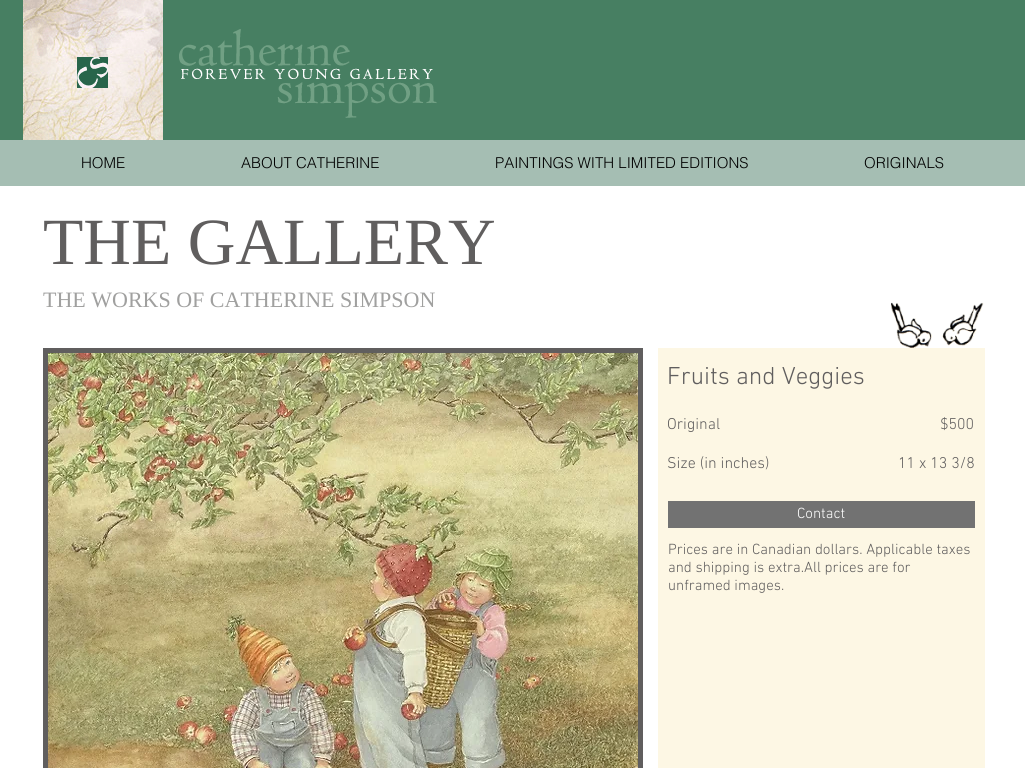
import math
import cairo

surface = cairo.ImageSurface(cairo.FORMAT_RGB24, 1025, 768)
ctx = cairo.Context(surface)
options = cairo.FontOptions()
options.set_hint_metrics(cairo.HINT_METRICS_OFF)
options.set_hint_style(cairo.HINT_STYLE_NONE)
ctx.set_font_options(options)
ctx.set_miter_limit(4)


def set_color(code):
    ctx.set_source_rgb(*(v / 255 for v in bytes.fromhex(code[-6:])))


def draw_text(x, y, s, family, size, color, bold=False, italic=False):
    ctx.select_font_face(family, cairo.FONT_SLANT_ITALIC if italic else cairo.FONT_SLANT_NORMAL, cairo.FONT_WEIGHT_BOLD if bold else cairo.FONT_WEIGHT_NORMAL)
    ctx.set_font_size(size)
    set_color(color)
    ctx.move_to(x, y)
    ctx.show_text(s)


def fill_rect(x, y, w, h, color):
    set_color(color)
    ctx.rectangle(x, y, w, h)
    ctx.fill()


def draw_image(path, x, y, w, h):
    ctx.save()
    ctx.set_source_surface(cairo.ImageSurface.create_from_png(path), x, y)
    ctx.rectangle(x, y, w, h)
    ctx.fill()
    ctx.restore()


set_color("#ffffff")
ctx.paint()
fill_rect(0, 0, 1025, 140, "#477f62")
draw_image("assets/img1.png", 23, 0, 140, 140)
draw_image("assets/img2.png", 179, 29, 258, 89)
fill_rect(0, 140, 1025, 46, "#a5beb3")
draw_text(81, 168, "HOME", "helvetica Light", 15, "#000000")
draw_text(241, 168, "ABOUT CATHERINE", "helvetica Light", 15, "#000000")
draw_text(495, 168, "PAINTINGS WITH LIMITED EDITIONS", "helvetica Light", 15, "#000000")
draw_text(864, 168, "ORIGINALS", "helvetica Light", 15, "#000000")
draw_text(43, 264, "THE GALLERY", "Liberation Serif", 66, "#605e5e")
draw_text(43, 307, "THE WORKS OF CATHERINE SIMPSON", "Liberation Serif", 22, "#a0a09f")
draw_image("assets/img3.png", 891, 302, 93, 46)
fill_rect(43, 348, 600, 420, "#605e5e")
draw_image("assets/img4.png", 48, 353, 590, 415)
fill_rect(658, 348, 327, 420, "#fdf7e4")
draw_text(667, 384, "Fruits and Veggies", "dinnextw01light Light", 25, "#605e5e")
draw_text(667, 429, "Original", "dinnextw01light Light", 16, "#605e5e")
draw_text(940, 429, "$500", "dinnextw01light Light", 16, "#605e5e")
draw_text(667, 468, "Size (in inches)", "dinnextw01light Light", 16, "#605e5e")
draw_text(898, 468, "11 x 13 3/8", "dinnextw01light Light", 16, "#605e5e")
fill_rect(668, 501, 307, 27, "#727272")
draw_text(797, 518, "Contact", "dinnextw01light Light", 15, "#ffffff")
draw_text(668, 554, "Prices are in Canadian dollars. Applicable taxes", "dinnextw01light Light", 15, "#605e5e")
draw_text(668, 572, "and shipping is extra.All prices are for", "dinnextw01light Light", 15, "#605e5e")
draw_text(668, 590, "unframed images.", "dinnextw01light Light", 15, "#605e5e")
surface.write_to_png("output.png")
